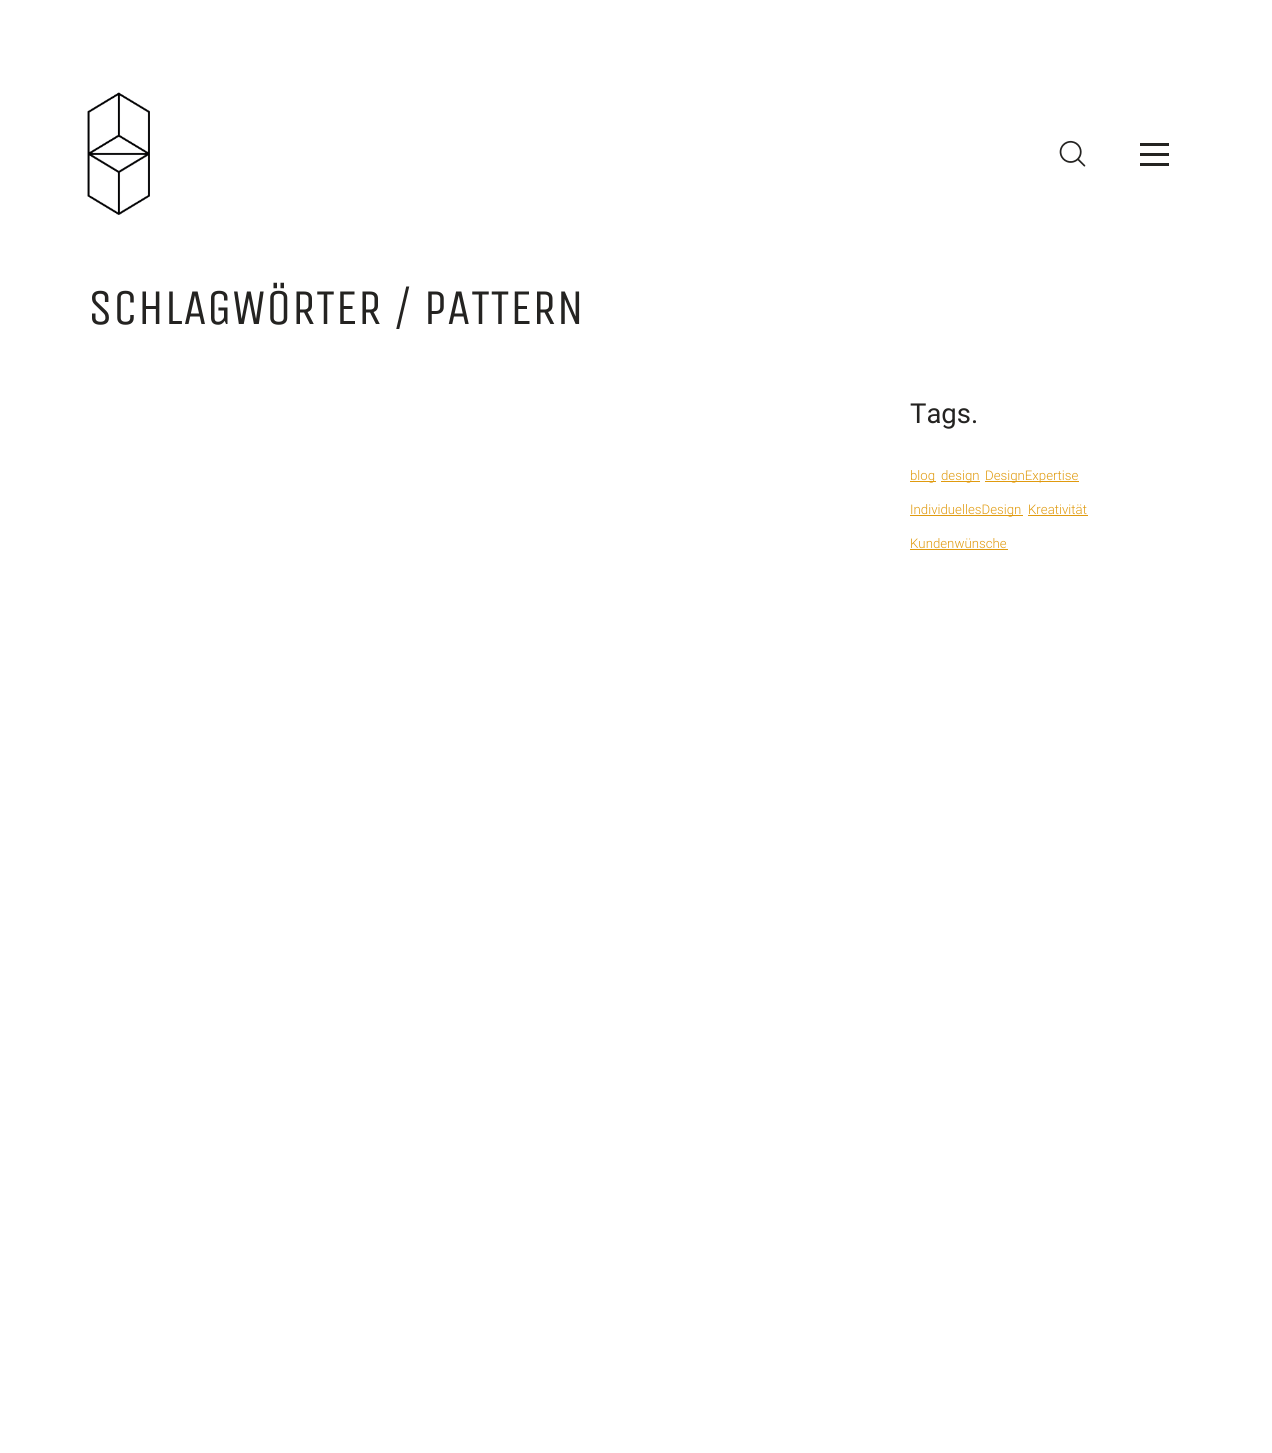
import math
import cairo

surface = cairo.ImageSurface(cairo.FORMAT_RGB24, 1272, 1453)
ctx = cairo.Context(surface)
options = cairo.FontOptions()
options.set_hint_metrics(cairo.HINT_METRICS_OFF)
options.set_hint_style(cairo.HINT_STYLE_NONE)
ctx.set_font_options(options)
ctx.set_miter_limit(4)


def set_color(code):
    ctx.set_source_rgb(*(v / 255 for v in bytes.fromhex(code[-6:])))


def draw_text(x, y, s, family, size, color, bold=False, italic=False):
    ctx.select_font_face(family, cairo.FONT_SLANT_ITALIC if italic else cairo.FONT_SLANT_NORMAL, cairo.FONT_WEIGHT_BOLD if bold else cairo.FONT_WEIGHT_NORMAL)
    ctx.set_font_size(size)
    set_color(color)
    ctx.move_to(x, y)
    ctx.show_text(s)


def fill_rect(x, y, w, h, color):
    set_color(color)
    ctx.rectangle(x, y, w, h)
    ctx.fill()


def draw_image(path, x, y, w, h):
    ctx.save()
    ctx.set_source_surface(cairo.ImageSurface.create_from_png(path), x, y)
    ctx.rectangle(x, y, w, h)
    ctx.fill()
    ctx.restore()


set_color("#ffffff")
ctx.paint()
draw_image("assets/img1.png", 87, 92, 63, 123)
draw_image("assets/img2.png", 1059, 140, 27, 27)
fill_rect(1140, 143, 29, 3, "#242321")
fill_rect(1140, 153, 29, 3, "#242321")
fill_rect(1140, 163, 29, 3, "#242321")
draw_text(88, 324, "SCHLAGWÖRTER / PATTERN", "Unica One", 50, "#242321")
draw_text(910, 423, "Tags.", "Roboto", 27.5, "#242321")
fill_rect(910, 481, 26, 1, "#e09a0e")
draw_text(910, 480, "blog", "Roboto Light", 13.25, "#e09a0e")
fill_rect(941, 481, 39, 1, "#e09a0e")
draw_text(941, 480, "design", "Roboto Light", 13.25, "#e09a0e")
fill_rect(985, 481, 94, 1, "#e09a0e")
draw_text(985, 480, "DesignExpertise", "Roboto Light", 13.25, "#e09a0e")
fill_rect(910, 515, 113, 1, "#e09a0e")
draw_text(910, 514, "IndividuellesDesign", "Roboto Light", 13.25, "#e09a0e")
draw_text(1028, 514, "Kreativität", "Roboto Light", 13.25, "#e09a0e")
fill_rect(1028, 515, 60, 1, "#e09a0e")
draw_text(910, 548, "Kundenwünsche", "Roboto Light", 13.25, "#e09a0e")
fill_rect(910, 549, 98, 1, "#e09a0e")
surface.write_to_png("output.png")
